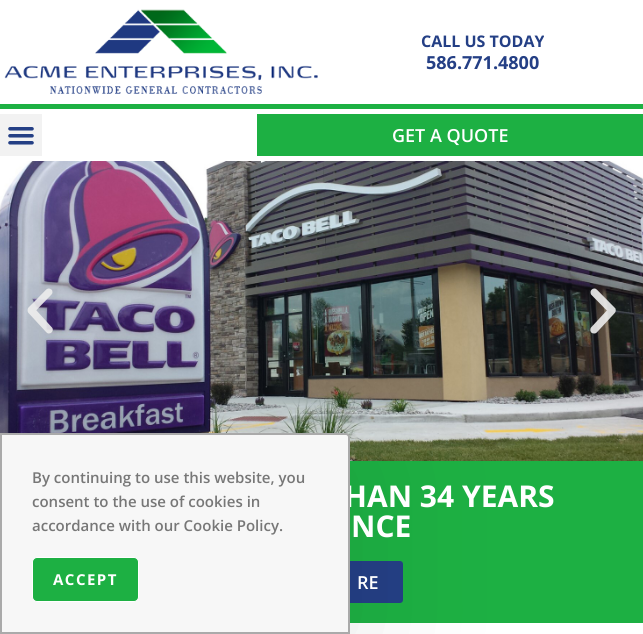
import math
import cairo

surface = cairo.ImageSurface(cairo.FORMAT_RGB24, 643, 634)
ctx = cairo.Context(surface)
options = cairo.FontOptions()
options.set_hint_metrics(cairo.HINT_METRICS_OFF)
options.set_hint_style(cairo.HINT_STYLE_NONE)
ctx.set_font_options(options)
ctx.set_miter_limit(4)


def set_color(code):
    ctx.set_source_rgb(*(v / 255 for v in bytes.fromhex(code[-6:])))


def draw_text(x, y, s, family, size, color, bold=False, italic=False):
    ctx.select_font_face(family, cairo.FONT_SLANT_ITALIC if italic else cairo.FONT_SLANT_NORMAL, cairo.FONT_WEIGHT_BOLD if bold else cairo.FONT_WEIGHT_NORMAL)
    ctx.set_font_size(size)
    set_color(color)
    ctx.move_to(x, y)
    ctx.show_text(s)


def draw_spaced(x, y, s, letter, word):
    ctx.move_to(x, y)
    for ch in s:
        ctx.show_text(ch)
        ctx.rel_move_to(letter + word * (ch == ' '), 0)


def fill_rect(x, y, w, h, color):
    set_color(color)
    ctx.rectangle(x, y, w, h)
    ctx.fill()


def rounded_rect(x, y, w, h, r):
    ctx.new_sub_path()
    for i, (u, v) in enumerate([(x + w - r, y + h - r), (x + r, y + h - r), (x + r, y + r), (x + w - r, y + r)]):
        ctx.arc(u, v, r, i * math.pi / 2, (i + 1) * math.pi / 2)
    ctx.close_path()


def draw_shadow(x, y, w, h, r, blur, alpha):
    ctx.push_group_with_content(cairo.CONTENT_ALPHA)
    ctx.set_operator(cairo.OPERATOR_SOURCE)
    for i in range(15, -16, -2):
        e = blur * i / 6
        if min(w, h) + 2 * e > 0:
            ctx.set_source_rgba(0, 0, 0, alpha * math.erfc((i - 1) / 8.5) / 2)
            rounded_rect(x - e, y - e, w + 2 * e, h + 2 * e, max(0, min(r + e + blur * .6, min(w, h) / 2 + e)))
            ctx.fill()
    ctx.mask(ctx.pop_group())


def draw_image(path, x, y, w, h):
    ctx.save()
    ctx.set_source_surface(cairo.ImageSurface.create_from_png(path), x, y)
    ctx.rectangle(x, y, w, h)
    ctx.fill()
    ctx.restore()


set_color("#ffffff")
ctx.paint()
draw_image("assets/img3.png", 0, 161, 643, 300)
draw_image("assets/img4.png", 27, 288, 26, 46)
fill_rect(350, 461, 293, 162, "#1db043")
set_color("#243f85")
rounded_rect(240, 561, 163, 42, 3)
ctx.fill()
set_color("#000000")
draw_shadow(0, 453, 350, 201, 4, 75, 0.1)
draw_text(344, 507, "HAN 34 YEARS", "Open Sans", 30, "#ffffff", bold=True)
set_color("#f7f7f7")
ctx.new_path()
ctx.move_to(1, 434)
ctx.line_to(346, 434)
ctx.curve_to(347.5, 434, 349, 435.5, 349, 437)
ctx.line_to(349, 633)
ctx.line_to(1, 633)
ctx.close_path()
ctx.fill_preserve()
set_color("#aaaaaa")
ctx.stroke()
draw_text(32, 483, "By continuing to use this website, you", "Open Sans SemiBold", 15, "#777777")
draw_text(32, 507, "consent to the use of cookies in", "Open Sans SemiBold", 15, "#777777")
draw_text(32, 531, "accordance with our Cookie Policy.", "Open Sans SemiBold", 15, "#777777")
set_color("#1db043")
rounded_rect(32.5, 557.5, 106, 44, 4.5)
ctx.fill_preserve()
set_color("#ffffff")
ctx.set_line_width(1)
ctx.stroke()
ctx.select_font_face("Open Sans", cairo.FONT_SLANT_NORMAL, cairo.FONT_WEIGHT_BOLD)
draw_spaced(53, 585, "ACCEPT", 1.5, 0)
draw_image("assets/img1.png", 4, 9, 314, 85)
draw_text(421, 47, "CALL US TODAY", "Open Sans", 16, "#243f85", bold=True)
draw_text(426, 69, "586.771.4800", "Open Sans", 18, "#243f85", bold=True)
fill_rect(0, 104, 643, 5, "#1db043")
fill_rect(0, 114, 42, 42, "#f2f2f2")
draw_image("assets/img2.png", 8, 127, 26, 18)
fill_rect(257, 114, 386, 42, "#1db043")
draw_text(392, 142, "GET A QUOTE", "Open Sans SemiBold", 18, "#ffffff")
draw_image("assets/img5.png", 590, 288, 26, 46)
draw_text(351, 537, "NCE", "Open Sans", 30, "#ffffff", bold=True)
draw_text(357, 589, "RE", "Open Sans SemiBold", 18, "#ffffff")
surface.write_to_png("output.png")
